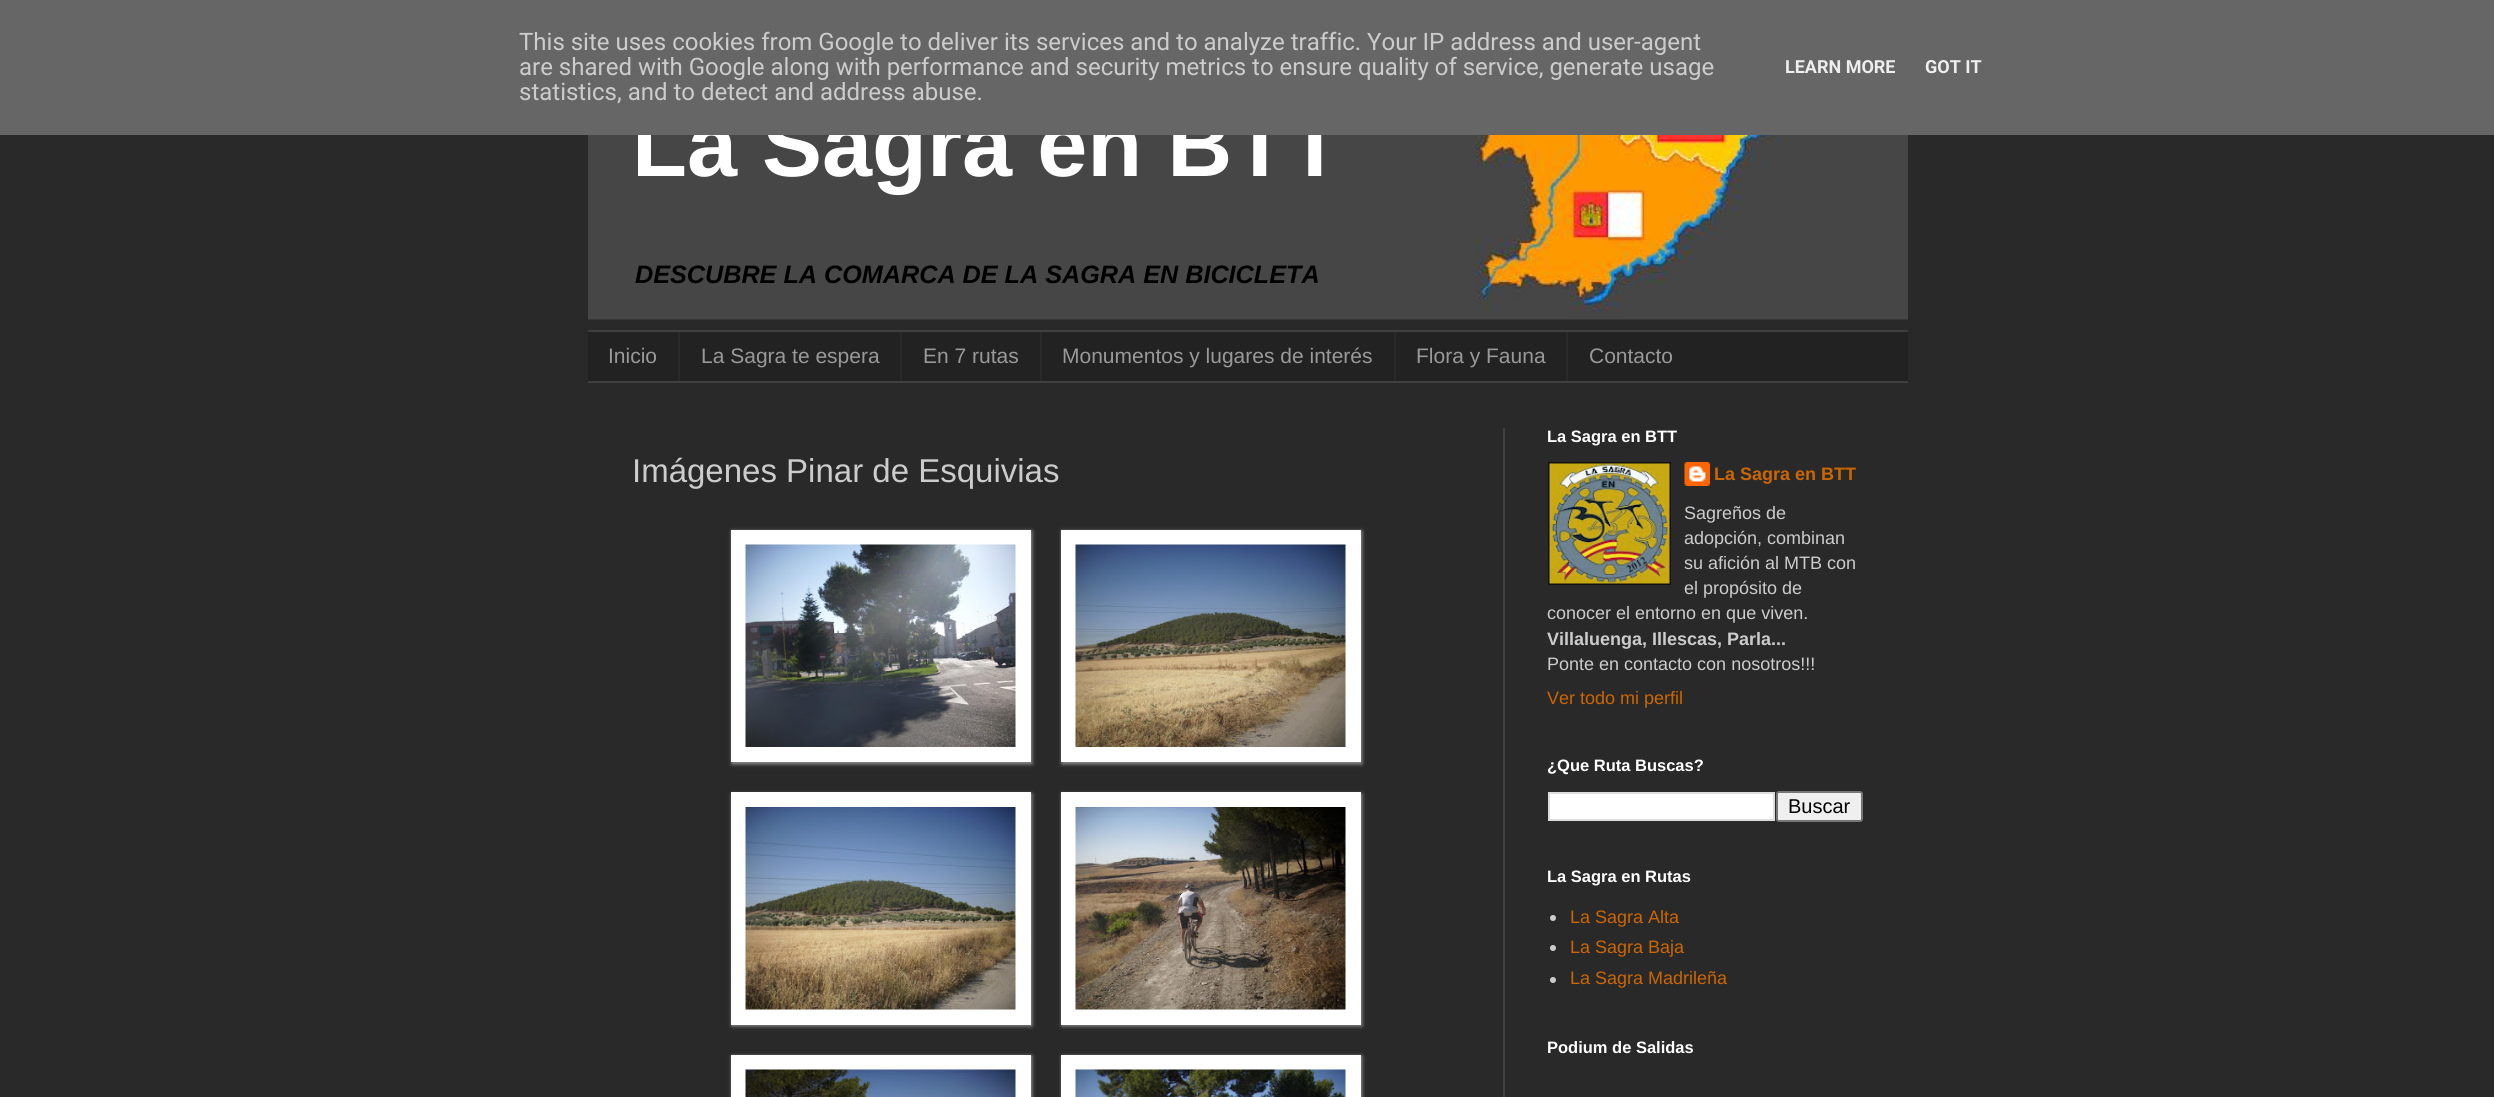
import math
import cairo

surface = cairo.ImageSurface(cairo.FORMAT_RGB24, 2494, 1097)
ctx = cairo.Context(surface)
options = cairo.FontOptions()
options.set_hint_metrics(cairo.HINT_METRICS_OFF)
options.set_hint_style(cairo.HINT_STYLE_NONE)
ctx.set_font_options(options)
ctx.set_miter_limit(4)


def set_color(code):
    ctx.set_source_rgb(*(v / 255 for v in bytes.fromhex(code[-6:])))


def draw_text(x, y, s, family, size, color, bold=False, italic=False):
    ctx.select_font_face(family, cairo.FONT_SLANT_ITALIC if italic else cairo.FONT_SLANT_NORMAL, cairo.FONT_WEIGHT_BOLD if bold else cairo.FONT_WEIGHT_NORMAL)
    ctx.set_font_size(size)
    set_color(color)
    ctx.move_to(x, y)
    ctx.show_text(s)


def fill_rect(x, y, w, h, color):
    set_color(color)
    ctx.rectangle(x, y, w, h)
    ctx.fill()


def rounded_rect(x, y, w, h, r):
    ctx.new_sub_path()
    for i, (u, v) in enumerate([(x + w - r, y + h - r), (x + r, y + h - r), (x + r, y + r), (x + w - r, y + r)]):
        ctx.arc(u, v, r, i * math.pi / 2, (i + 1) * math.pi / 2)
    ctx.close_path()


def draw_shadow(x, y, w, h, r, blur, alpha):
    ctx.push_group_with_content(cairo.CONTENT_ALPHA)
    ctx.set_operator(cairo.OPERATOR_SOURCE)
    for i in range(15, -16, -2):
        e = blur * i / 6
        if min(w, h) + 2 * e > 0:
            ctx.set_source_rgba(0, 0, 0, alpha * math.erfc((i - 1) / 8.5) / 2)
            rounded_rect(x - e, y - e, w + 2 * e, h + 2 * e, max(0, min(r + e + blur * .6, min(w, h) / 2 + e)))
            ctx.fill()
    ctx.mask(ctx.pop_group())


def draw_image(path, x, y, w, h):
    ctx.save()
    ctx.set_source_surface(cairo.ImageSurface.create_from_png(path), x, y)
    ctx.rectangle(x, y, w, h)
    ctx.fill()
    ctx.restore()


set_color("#292929")
ctx.paint()
draw_image("assets/img1.png", 588, 135, 1320, 185)
draw_text(632, 176, "La Sagra en BTT", "Liberation Sans", 90, "#ffffff", bold=True)
fill_rect(0, 0, 2494, 135, "#666666")
draw_text(519, 50, "This site uses cookies from Google to deliver its services and to analyze traffic. Your IP address and user-agent", "Roboto", 24, "#cccccc")
draw_text(519, 75, "are shared with Google along with performance and security metrics to ensure quality of service, generate usage", "Roboto", 24, "#cccccc")
draw_text(519, 100, "statistics, and to detect and address abuse.", "Roboto", 24, "#cccccc")
draw_text(1785, 73, "LEARN MORE", "Roboto", 18, "#eeeeee", bold=True)
draw_text(1925, 73, "GOT IT", "Roboto", 18, "#eeeeee", bold=True)
draw_text(635, 283, "DESCUBRE LA COMARCA DE LA SAGRA EN BICICLETA", "Liberation Sans", 25.2, "#000000", bold=True, italic=True)
fill_rect(588, 332, 1320, 49, "#222222")
fill_rect(588, 330, 1320, 2, "#404040")
fill_rect(588, 381, 1320, 2, "#404040")
draw_text(608, 363, "Inicio", "Liberation Sans", 21, "#999999")
fill_rect(678, 332, 2, 49, "#292929")
draw_text(701, 363, "La Sagra te espera", "Liberation Sans", 21, "#999999")
fill_rect(900, 332, 2, 49, "#292929")
draw_text(923, 363, "En 7 rutas", "Liberation Sans", 21, "#999999")
fill_rect(1040, 332, 2, 49, "#292929")
draw_text(1062, 363, "Monumentos y lugares de interés", "Liberation Sans", 21, "#999999")
fill_rect(1394, 332, 2, 49, "#292929")
draw_text(1416, 363, "Flora y Fauna", "Liberation Sans", 21, "#999999")
fill_rect(1566, 332, 2, 49, "#292929")
draw_text(1589, 363, "Contacto", "Liberation Sans", 21, "#999999")
fill_rect(1503, 428, 2, 669, "#404040")
draw_text(632, 482, "Imágenes Pinar de Esquivias", "Liberation Sans", 33, "#cccccc")
set_color("#999999")
draw_shadow(732, 531, 300, 233, 0, 2, 1)
fill_rect(731, 530, 300, 232, "#ffffff")
draw_image("assets/img2.png", 745, 544, 271, 203)
set_color("#999999")
draw_shadow(1062, 531, 300, 233, 0, 2, 1)
fill_rect(1061, 530, 300, 232, "#ffffff")
draw_image("assets/img3.png", 1075, 544, 271, 203)
set_color("#999999")
draw_shadow(732, 794, 300, 232, 0, 2, 1)
fill_rect(731, 792, 300, 233, "#ffffff")
draw_image("assets/img4.png", 745, 807, 271, 203)
set_color("#999999")
draw_shadow(1062, 794, 300, 232, 0, 2, 1)
fill_rect(1061, 792, 300, 233, "#ffffff")
draw_image("assets/img5.png", 1075, 807, 271, 203)
set_color("#999999")
draw_shadow(732, 1056, 300, 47, 0, 2, 1)
fill_rect(731, 1055, 300, 42, "#ffffff")
draw_image("assets/img6.png", 745, 1069, 271, 28)
set_color("#999999")
draw_shadow(1062, 1056, 300, 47, 0, 2, 1)
fill_rect(1061, 1055, 300, 42, "#ffffff")
draw_image("assets/img7.png", 1075, 1069, 271, 28)
draw_text(1547, 442, "La Sagra en BTT", "Liberation Sans", 16.5, "#ffffff", bold=True)
fill_rect(1548, 462, 123, 123, "#111111")
draw_image("assets/img8.png", 1549, 463, 121, 121)
draw_image("assets/img9.png", 1684, 462, 26, 24)
draw_text(1714, 480, "La Sagra en BTT", "Liberation Sans", 18, "#cc6600", bold=True)
draw_text(1684, 519, "Sagreños de", "Liberation Sans", 18, "#cccccc")
draw_text(1684, 544, "adopción, combinan", "Liberation Sans", 18, "#cccccc")
draw_text(1684, 569, "su afición al MTB con", "Liberation Sans", 18, "#cccccc")
draw_text(1684, 594, "el propósito de", "Liberation Sans", 18, "#cccccc")
draw_text(1547, 619, "conocer el entorno en que viven.", "Liberation Sans", 18, "#cccccc")
draw_text(1547, 645, "Villaluenga, Illescas, Parla...", "Liberation Sans", 18, "#cccccc", bold=True)
draw_text(1547, 670, "Ponte en contacto con nosotros!!!", "Liberation Sans", 18, "#cccccc")
draw_text(1547, 704, "Ver todo mi perfil", "Liberation Sans", 18, "#cc6600")
draw_text(1547, 771, "¿Que Ruta Buscas?", "Liberation Sans", 16.5, "#ffffff", bold=True)
ctx.rectangle(1549, 793, 225, 27)
ctx.fill_preserve()
set_color("#dddddd")
ctx.stroke()
set_color("#efefef")
rounded_rect(1777, 792, 85, 29, 2)
ctx.fill_preserve()
set_color("#767676")
ctx.stroke()
draw_text(1788, 813, "Buscar", "Liberation Sans", 20, "#000000")
draw_text(1547, 882, "La Sagra en Rutas", "Liberation Sans", 16.5, "#ffffff", bold=True)
set_color("#cccccc")
ctx.new_path()
ctx.arc(1553, 918, 3, 0, 2 * math.pi)
ctx.fill()
draw_text(1570, 923, "La Sagra Alta", "Liberation Sans", 18, "#cc6600")
set_color("#cccccc")
ctx.new_path()
ctx.arc(1553, 948, 3, 0, 2 * math.pi)
ctx.fill()
draw_text(1570, 953, "La Sagra Baja", "Liberation Sans", 18, "#cc6600")
set_color("#cccccc")
ctx.new_path()
ctx.arc(1553, 980, 3, 0, 2 * math.pi)
ctx.fill()
draw_text(1570, 984, "La Sagra Madrileña", "Liberation Sans", 18, "#cc6600")
draw_text(1547, 1053, "Podium de Salidas", "Liberation Sans", 16.5, "#ffffff", bold=True)
surface.write_to_png("output.png")
